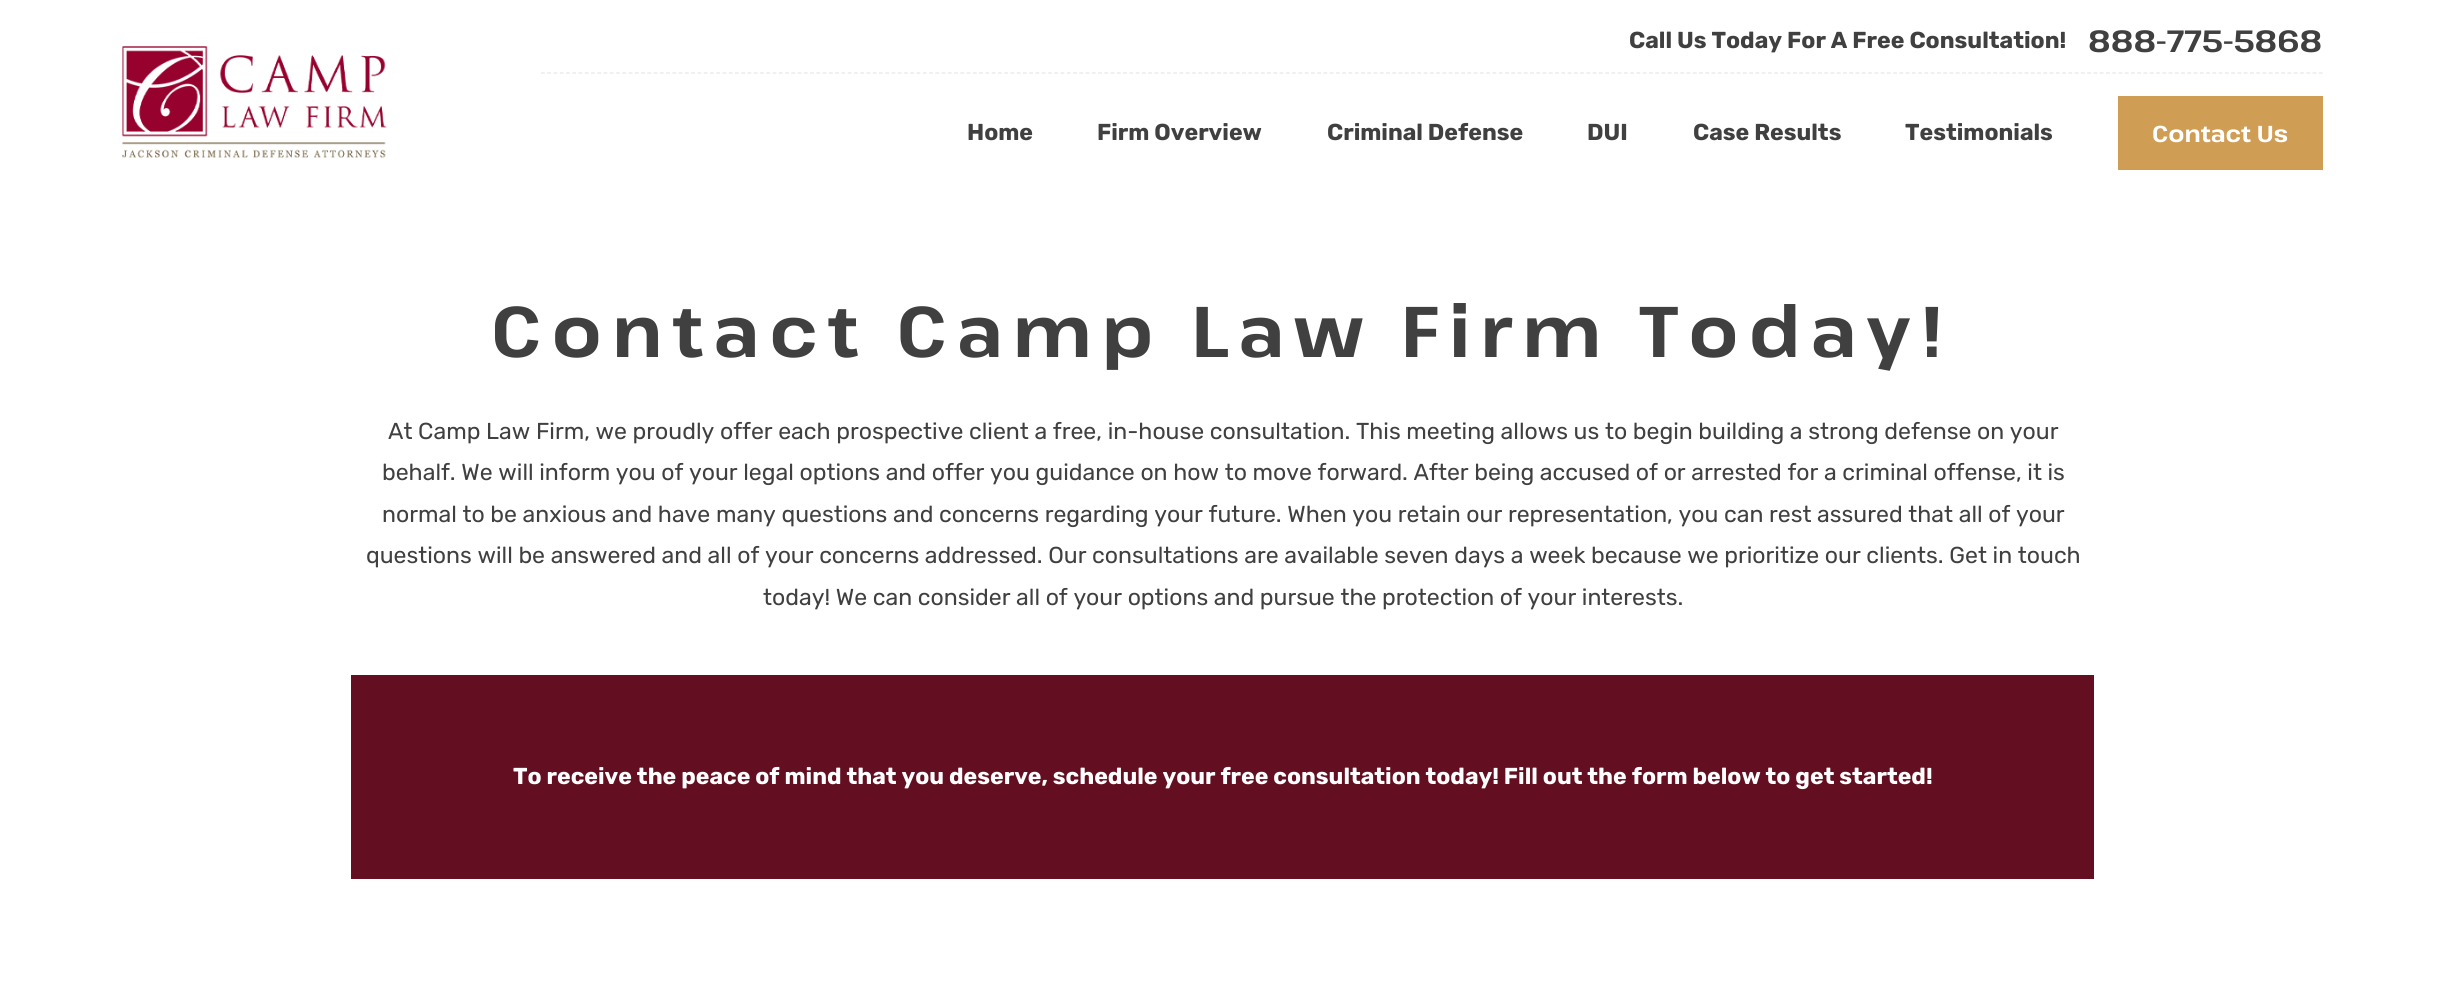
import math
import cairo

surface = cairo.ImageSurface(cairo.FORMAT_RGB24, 2444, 997)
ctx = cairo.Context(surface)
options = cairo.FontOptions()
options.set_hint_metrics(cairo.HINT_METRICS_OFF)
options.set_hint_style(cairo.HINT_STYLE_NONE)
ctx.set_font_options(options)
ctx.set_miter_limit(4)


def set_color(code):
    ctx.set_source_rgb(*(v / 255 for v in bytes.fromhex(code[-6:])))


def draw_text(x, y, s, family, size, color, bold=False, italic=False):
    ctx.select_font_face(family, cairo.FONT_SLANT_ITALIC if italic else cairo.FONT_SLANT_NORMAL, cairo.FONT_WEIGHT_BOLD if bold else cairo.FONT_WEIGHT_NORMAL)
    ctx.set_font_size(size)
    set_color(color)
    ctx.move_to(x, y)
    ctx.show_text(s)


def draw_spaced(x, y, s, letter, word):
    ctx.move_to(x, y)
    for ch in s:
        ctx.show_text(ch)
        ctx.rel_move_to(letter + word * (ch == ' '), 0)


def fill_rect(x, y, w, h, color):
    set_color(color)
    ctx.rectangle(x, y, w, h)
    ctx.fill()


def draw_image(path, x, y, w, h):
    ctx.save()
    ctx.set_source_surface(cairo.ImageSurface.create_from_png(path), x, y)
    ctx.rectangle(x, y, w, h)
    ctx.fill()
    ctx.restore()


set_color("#ffffff")
ctx.paint()
draw_image("assets/img1.png", 122, 46, 265, 112)
ctx.new_path()
ctx.move_to(541, 73)
ctx.line_to(2322.5, 73)
set_color("#e6e6e6")
ctx.set_line_width(1.2)
ctx.set_dash([3.75, 2.51])
ctx.stroke()
draw_text(1629, 48, "Call Us Today For A Free Consultation!", "Rubik", 23.1, "#404040", bold=True)
draw_text(2088, 52, "888-775-5868", "Pathway Extreme", 30.75, "#404040", bold=True)
draw_text(967, 140, "Home", "Rubik", 23.05, "#404040", bold=True)
draw_text(1097, 140, "Firm Overview", "Rubik", 23.05, "#404040", bold=True)
draw_text(1327, 140, "Criminal Defense", "Rubik", 23.05, "#404040", bold=True)
draw_text(1587, 140, "DUI", "Rubik", 23.05, "#404040", bold=True)
draw_text(1693, 140, "Case Results", "Rubik", 23.05, "#404040", bold=True)
draw_text(1905, 140, "Testimonials", "Rubik", 23.05, "#404040", bold=True)
fill_rect(2118, 96, 205, 74, "#d09d55")
draw_text(2152, 142, "Contact Us", "Pathway Extreme", 23.05, "#ffffff", bold=True)
ctx.set_font_size(71.6)
set_color("#404040")
draw_spaced(491, 357, "Contact Camp Law Firm Today!", 10, 0)
draw_text(388, 439, "At Camp Law Firm, we proudly offer each prospective client a free, in-house consultation. This meeting allows us to begin building a strong defense on your", "Rubik", 23.05, "#404040")
draw_text(382, 480, "behalf. We will inform you of your legal options and offer you guidance on how to move forward. After being accused of or arrested for a criminal offense, it is", "Rubik", 23.05, "#404040")
draw_text(382, 522, "normal to be anxious and have many questions and concerns regarding your future. When you retain our representation, you can rest assured that all of your", "Rubik", 23.05, "#404040")
draw_text(366, 563, "questions will be answered and all of your concerns addressed. Our consultations are available seven days a week because we prioritize our clients. Get in touch", "Rubik", 23.05, "#404040")
draw_text(763, 605, "today! We can consider all of your options and pursue the protection of your interests.", "Rubik", 23.05, "#404040")
fill_rect(351, 675, 1743, 204, "#640f21")
draw_text(513, 784, "To receive the peace of mind that you deserve, schedule your free consultation today! Fill out the form below to get started!", "Rubik", 23.05, "#ffffff", bold=True)
surface.write_to_png("output.png")
